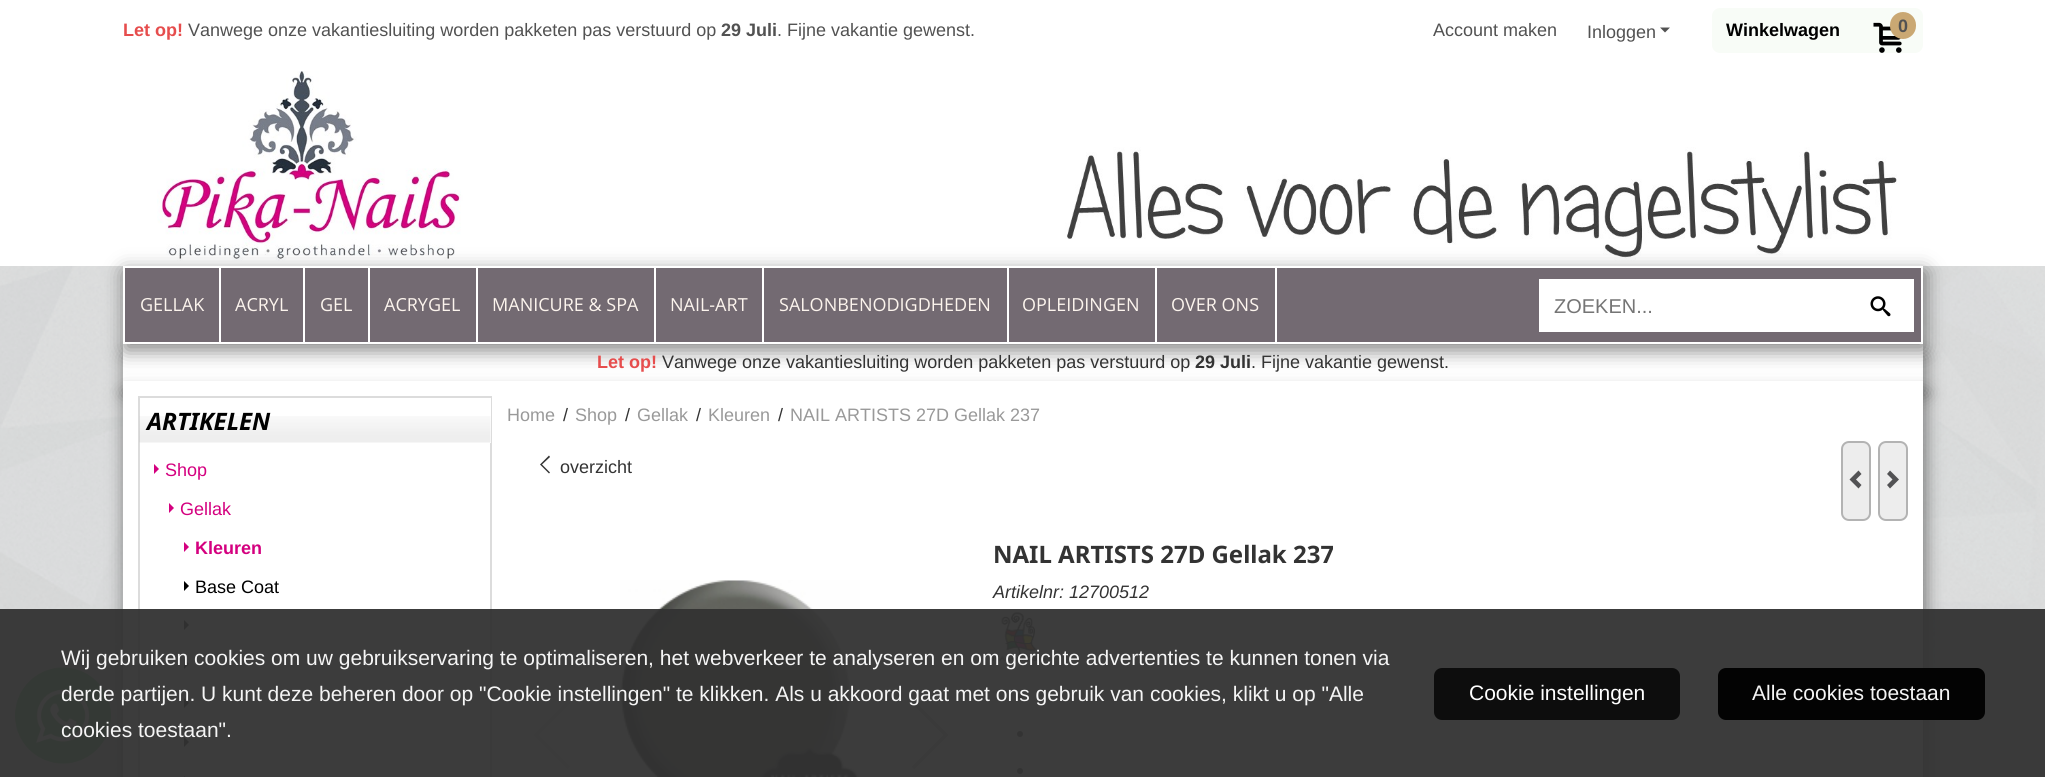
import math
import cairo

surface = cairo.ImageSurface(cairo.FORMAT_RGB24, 2045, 777)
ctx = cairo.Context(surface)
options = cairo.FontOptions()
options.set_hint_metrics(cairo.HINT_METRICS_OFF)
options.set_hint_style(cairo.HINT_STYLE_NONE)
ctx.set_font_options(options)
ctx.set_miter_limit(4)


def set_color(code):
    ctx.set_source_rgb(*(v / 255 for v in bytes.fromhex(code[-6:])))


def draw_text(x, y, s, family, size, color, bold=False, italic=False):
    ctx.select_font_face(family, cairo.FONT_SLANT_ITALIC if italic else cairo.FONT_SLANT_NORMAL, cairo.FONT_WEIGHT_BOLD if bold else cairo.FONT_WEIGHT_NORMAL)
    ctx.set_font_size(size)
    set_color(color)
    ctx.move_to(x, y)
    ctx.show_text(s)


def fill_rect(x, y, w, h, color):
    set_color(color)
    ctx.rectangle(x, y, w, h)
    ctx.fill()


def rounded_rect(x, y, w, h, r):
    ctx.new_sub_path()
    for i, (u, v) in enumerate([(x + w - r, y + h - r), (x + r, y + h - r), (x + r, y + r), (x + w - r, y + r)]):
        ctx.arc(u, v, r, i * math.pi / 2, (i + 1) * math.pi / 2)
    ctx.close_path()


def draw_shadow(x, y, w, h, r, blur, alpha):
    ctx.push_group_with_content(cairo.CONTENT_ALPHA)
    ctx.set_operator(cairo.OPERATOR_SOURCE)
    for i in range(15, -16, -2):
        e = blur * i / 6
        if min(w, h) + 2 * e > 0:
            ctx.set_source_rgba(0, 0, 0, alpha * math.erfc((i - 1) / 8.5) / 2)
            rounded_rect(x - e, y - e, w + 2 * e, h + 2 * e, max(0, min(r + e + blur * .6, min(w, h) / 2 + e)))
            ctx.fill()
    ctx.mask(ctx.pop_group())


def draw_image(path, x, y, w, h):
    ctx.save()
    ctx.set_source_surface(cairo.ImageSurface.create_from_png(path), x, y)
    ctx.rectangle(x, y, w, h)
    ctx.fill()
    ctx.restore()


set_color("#ffffff")
ctx.paint()
draw_image("assets/img1.png", 0, 266, 2045, 511)
draw_text(123, 36, "Let op!", "Liberation Sans", 18, "#e64d4d", bold=True)
draw_text(188, 36, "Vanwege onze vakantiesluiting worden pakketen pas verstuurd op", "Liberation Sans", 18, "#525252")
draw_text(721, 36, "29 Juli", "Liberation Sans", 18, "#525252", bold=True)
draw_text(777, 36, ". Fijne vakantie gewenst.", "Liberation Sans", 18, "#525252")
draw_text(1433, 36, "Account maken", "Liberation Sans", 18, "#525252")
draw_text(1587, 38, "Inloggen", "Liberation Sans", 18, "#525252")
ctx.new_path()
ctx.move_to(1660, 27.5)
ctx.line_to(1665, 32.5)
ctx.line_to(1670, 27.5)
ctx.close_path()
ctx.fill()
set_color("#f8fcf7")
rounded_rect(1712, 8, 211, 45, 8)
ctx.fill()
draw_text(1726, 36, "Winkelwagen", "Liberation Sans", 18, "#000000", bold=True)
draw_image("assets/img2.png", 1873, 22, 29, 31)
set_color("#caa873")
rounded_rect(1890, 12, 26, 27, 13)
ctx.fill()
draw_text(1898, 32, "0", "Liberation Sans", 18, "#525252", bold=True)
draw_image("assets/img3.png", 157, 71, 1740, 190)
set_color("#000000")
draw_shadow(125, 356, 1800, 37, 0, 9, 0.5)
fill_rect(123, 344, 1800, 37, "#ffffff")
set_color("#000000")
draw_shadow(125, 272, 1800, 78, 0, 10, 0.5)
set_color("#736a72")
ctx.rectangle(124, 267, 1798, 76)
ctx.fill_preserve()
set_color("#ffffff")
ctx.stroke()
fill_rect(219, 267, 2, 75, "#ffffff")
draw_text(140, 311, "GELLAK", "Open Sans", 18, "#fcf4ed")
fill_rect(303, 267, 2, 75, "#ffffff")
draw_text(235, 311, "ACRYL", "Open Sans", 18, "#fcf4ed")
fill_rect(368, 267, 2, 75, "#ffffff")
draw_text(320, 311, "GEL", "Open Sans", 18, "#fcf4ed")
fill_rect(476, 267, 2, 75, "#ffffff")
draw_text(384, 311, "ACRYGEL", "Open Sans", 18, "#fcf4ed")
fill_rect(654, 267, 2, 75, "#ffffff")
draw_text(492, 311, "MANICURE & SPA", "Open Sans", 18, "#fcf4ed")
fill_rect(762, 267, 2, 75, "#ffffff")
draw_text(670, 311, "NAIL-ART", "Open Sans", 18, "#fcf4ed")
fill_rect(1007, 267, 2, 75, "#ffffff")
draw_text(779, 311, "SALONBENODIGDHEDEN", "Open Sans", 18, "#fcf4ed")
fill_rect(1155, 267, 2, 75, "#ffffff")
draw_text(1022, 311, "OPLEIDINGEN", "Open Sans", 18, "#fcf4ed")
fill_rect(1275, 267, 2, 75, "#ffffff")
draw_text(1171, 311, "OVER ONS", "Open Sans", 18, "#fcf4ed")
fill_rect(1539, 279, 375, 53, "#ffffff")
draw_text(1554, 313, "ZOEKEN...", "Liberation Sans", 20, "#757575")
draw_image("assets/img4.png", 1870, 296, 21, 21)
draw_text(597, 368, "Let op!", "Liberation Sans", 18, "#e64d4d", bold=True)
draw_text(662, 368, "Vanwege onze vakantiesluiting worden pakketen pas verstuurd op", "Liberation Sans", 18, "#333333")
draw_text(1195, 368, "29 Juli", "Liberation Sans", 18, "#333333", bold=True)
draw_text(1251, 368, ". Fijne vakantie gewenst.", "Liberation Sans", 18, "#333333")
set_color("#000000")
draw_shadow(125, 393, 1800, 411, 0, 9, 0.5)
fill_rect(123, 381, 1800, 396, "#ffffff")
ctx.rectangle(139, 397, 352, 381)
set_color("#dcdcdc")
ctx.stroke()
fill_rect(490, 398, 1, 45, "#ffffff")
draw_image("assets/img5.png", 139, 416, 352, 27)
draw_text(147, 430, "ARTIKELEN", "Noto Sans", 24, "#000000", bold=True, italic=True)
draw_text(165, 476, "Shop", "Liberation Sans", 18, "#d4007f")
ctx.new_path()
ctx.move_to(154, 474)
ctx.line_to(159, 469)
ctx.line_to(154, 464)
ctx.close_path()
ctx.move_to(169, 513)
ctx.line_to(174, 508)
ctx.line_to(169, 503)
ctx.close_path()
ctx.fill()
draw_text(180, 515, "Gellak", "Liberation Sans", 18, "#d4007f")
draw_text(195, 554, "Kleuren", "Liberation Sans", 18, "#d4007f", bold=True)
ctx.new_path()
ctx.move_to(184, 552)
ctx.line_to(189, 547)
ctx.line_to(184, 542)
ctx.close_path()
ctx.fill()
draw_text(195, 593, "Base Coat", "Liberation Sans", 18, "#000000")
ctx.new_path()
ctx.move_to(184, 591)
ctx.line_to(189, 586)
ctx.line_to(184, 581)
ctx.close_path()
ctx.move_to(184, 630)
ctx.line_to(189, 625)
ctx.line_to(184, 620)
ctx.close_path()
ctx.fill()
ctx.new_path()
ctx.move_to(184, 669)
ctx.line_to(189, 664)
ctx.line_to(184, 659)
ctx.close_path()
ctx.move_to(184, 708)
ctx.line_to(189, 703)
ctx.line_to(184, 698)
ctx.close_path()
ctx.fill()
ctx.new_path()
ctx.move_to(184, 747)
ctx.line_to(189, 742)
ctx.line_to(184, 737)
ctx.close_path()
ctx.move_to(184, 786)
ctx.line_to(189, 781)
ctx.line_to(184, 776)
ctx.close_path()
ctx.fill()
draw_text(507, 421, "Home", "Liberation Sans", 18, "#999999")
draw_text(563, 421, "/", "Liberation Sans", 18, "#333333")
draw_text(575, 421, "Shop", "Liberation Sans", 18, "#999999")
draw_text(625, 421, "/", "Liberation Sans", 18, "#333333")
draw_text(637, 421, "Gellak", "Liberation Sans", 18, "#999999")
draw_text(696, 421, "/", "Liberation Sans", 18, "#333333")
draw_text(708, 421, "Kleuren", "Liberation Sans", 18, "#999999")
draw_text(778, 421, "/", "Liberation Sans", 18, "#333333")
draw_text(790, 421, "NAIL ARTISTS 27D Gellak 237", "Liberation Sans", 18, "#999999")
draw_text(560, 473, "overzicht", "Liberation Sans", 18, "#333333")
ctx.new_path()
ctx.move_to(549, 473.5)
ctx.line_to(550, 472.5)
ctx.line_to(542, 464.5)
ctx.line_to(550, 457)
ctx.line_to(549, 455.5)
ctx.line_to(540, 464.5)
ctx.close_path()
ctx.fill()
set_color("#ededed")
rounded_rect(1842, 442, 28, 78, 7)
ctx.fill_preserve()
set_color("#b3b3b3")
ctx.stroke()
set_color("#525254")
ctx.new_path()
ctx.move_to(1858.5, 488.5)
ctx.line_to(1861.5, 485)
ctx.line_to(1856, 479.5)
ctx.line_to(1861.5, 474)
ctx.line_to(1858.5, 470.5)
ctx.line_to(1849.5, 479.5)
ctx.close_path()
ctx.fill()
set_color("#ededed")
rounded_rect(1879, 442, 28, 78, 7)
ctx.fill_preserve()
set_color("#b3b3b3")
ctx.stroke()
set_color("#525254")
ctx.new_path()
ctx.move_to(1890, 470.5)
ctx.line_to(1887, 474)
ctx.line_to(1892.5, 479.5)
ctx.line_to(1887, 485)
ctx.line_to(1890, 488.5)
ctx.line_to(1899, 479.5)
ctx.close_path()
ctx.fill()
draw_text(993, 563, "NAIL ARTISTS 27D Gellak 237", "Noto Sans", 24, "#333333", bold=True)
draw_text(993, 598, "Artikelnr: 12700512", "Liberation Sans", 18, "#333333", italic=True)
draw_image("assets/img6.png", 993, 612, 53, 50)
set_color("#423e42")
ctx.arc(1020, 696, 3, 0, 2 * math.pi)
ctx.fill()
ctx.arc(1020, 734, 3, 0, 2 * math.pi)
ctx.fill()
ctx.arc(1020, 771, 3, 0, 2 * math.pi)
ctx.fill()
draw_image("assets/img7.png", 620, 580, 240, 197)
ctx.new_path()
ctx.move_to(569, 702)
ctx.line_to(536, 735)
ctx.line_to(569, 768)
set_color("#ebebeb")
ctx.set_line_width(3.8)
ctx.stroke()
ctx.new_path()
ctx.move_to(913, 768)
ctx.line_to(946, 735)
ctx.line_to(913, 702)
set_color("#d6d6d6")
ctx.stroke()
draw_image("assets/img8.png", 15, 667, 96, 97)
ctx.set_source_rgba(0.2, 0.2, 0.2, 0.95)
ctx.rectangle(0, 609, 2045, 168)
ctx.fill()
draw_text(61, 665, "Wij gebruiken cookies om uw gebruikservaring te optimaliseren, het webverkeer te analyseren en om gerichte advertenties te kunnen tonen via", "Liberation Sans", 21, "#f5f5f5")
draw_text(61, 701, "derde partijen. U kunt deze beheren door op \"Cookie instellingen\" te klikken. Als u akkoord gaat met ons gebruik van cookies, klikt u op \"Alle", "Liberation Sans", 21, "#f5f5f5")
draw_text(61, 737, "cookies toestaan\".", "Liberation Sans", 21, "#f5f5f5")
set_color("#0d0d0d")
rounded_rect(1434, 668, 246, 52, 8)
ctx.fill()
draw_text(1469, 700, "Cookie instellingen", "Liberation Sans", 21, "#ffffff")
ctx.set_source_rgba(0, 0, 0, 0.95)
rounded_rect(1718, 668, 267, 52, 8)
ctx.fill()
draw_text(1752, 700, "Alle cookies toestaan", "Liberation Sans", 21, "#f5f5f5")
surface.write_to_png("output.png")
